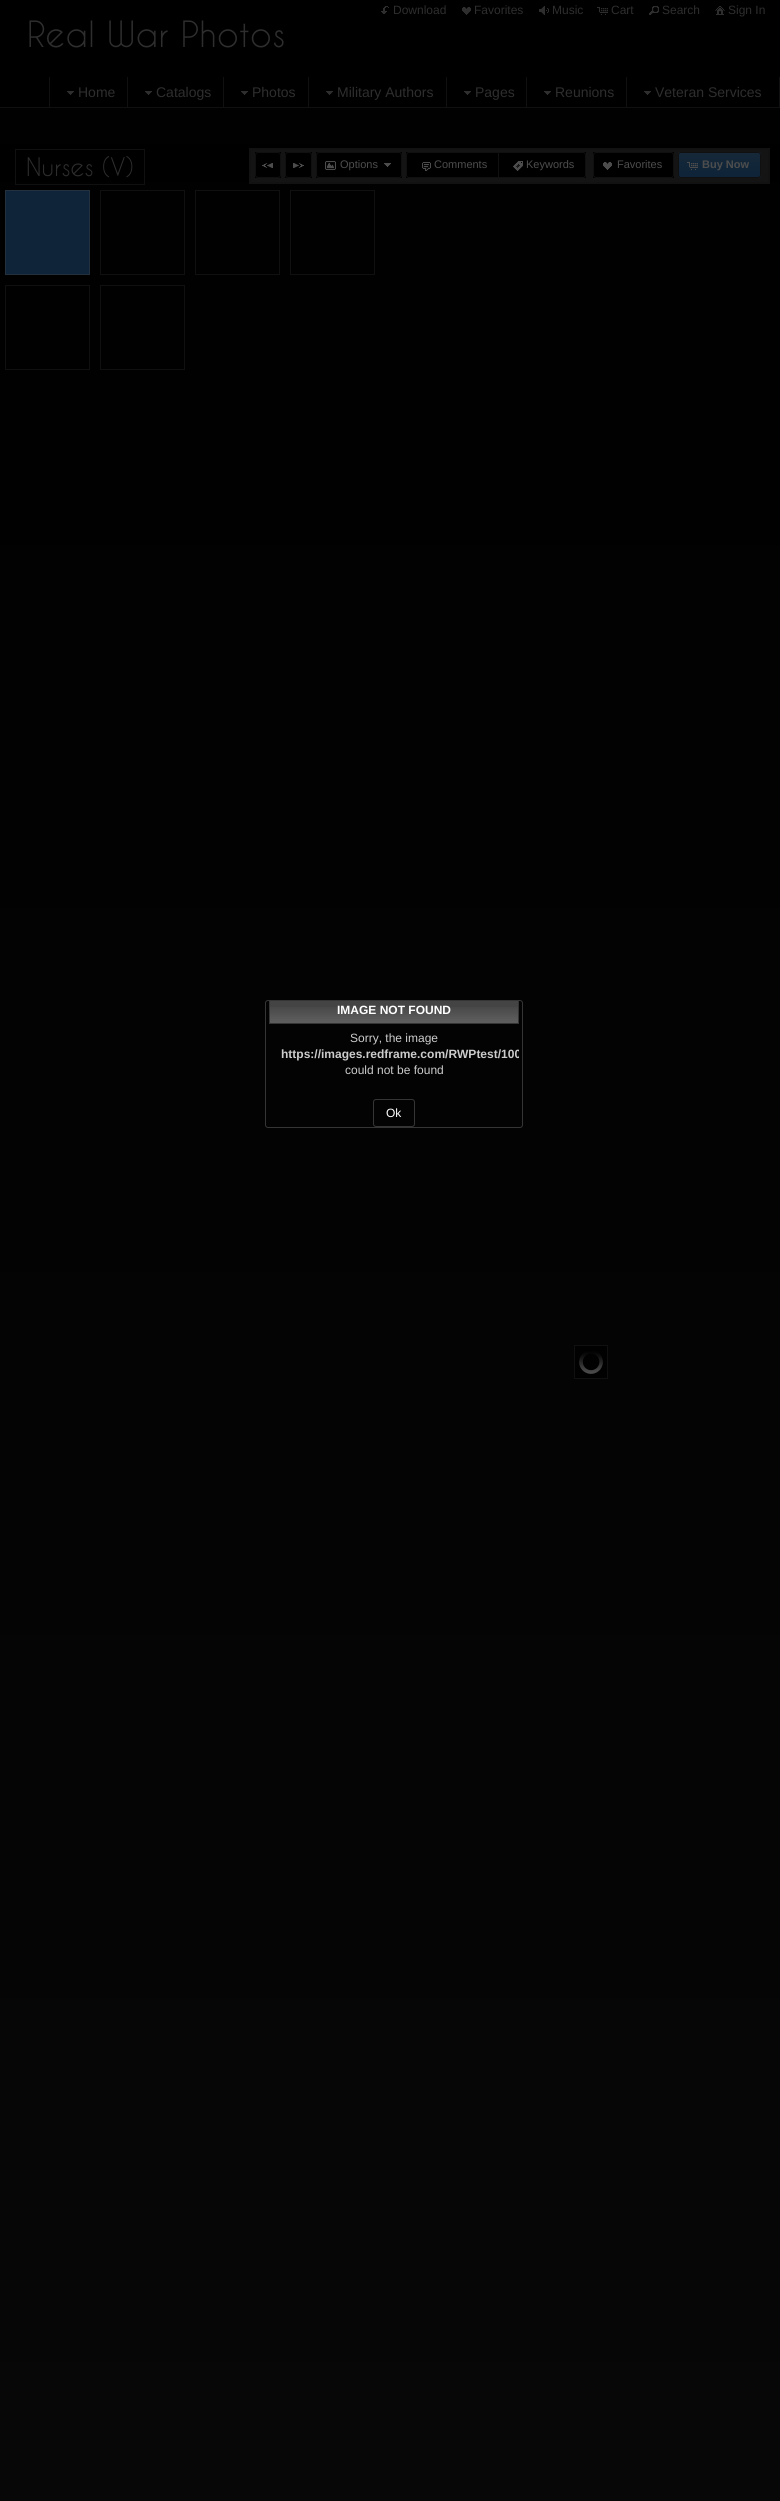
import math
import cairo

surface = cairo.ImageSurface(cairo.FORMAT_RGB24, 780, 2501)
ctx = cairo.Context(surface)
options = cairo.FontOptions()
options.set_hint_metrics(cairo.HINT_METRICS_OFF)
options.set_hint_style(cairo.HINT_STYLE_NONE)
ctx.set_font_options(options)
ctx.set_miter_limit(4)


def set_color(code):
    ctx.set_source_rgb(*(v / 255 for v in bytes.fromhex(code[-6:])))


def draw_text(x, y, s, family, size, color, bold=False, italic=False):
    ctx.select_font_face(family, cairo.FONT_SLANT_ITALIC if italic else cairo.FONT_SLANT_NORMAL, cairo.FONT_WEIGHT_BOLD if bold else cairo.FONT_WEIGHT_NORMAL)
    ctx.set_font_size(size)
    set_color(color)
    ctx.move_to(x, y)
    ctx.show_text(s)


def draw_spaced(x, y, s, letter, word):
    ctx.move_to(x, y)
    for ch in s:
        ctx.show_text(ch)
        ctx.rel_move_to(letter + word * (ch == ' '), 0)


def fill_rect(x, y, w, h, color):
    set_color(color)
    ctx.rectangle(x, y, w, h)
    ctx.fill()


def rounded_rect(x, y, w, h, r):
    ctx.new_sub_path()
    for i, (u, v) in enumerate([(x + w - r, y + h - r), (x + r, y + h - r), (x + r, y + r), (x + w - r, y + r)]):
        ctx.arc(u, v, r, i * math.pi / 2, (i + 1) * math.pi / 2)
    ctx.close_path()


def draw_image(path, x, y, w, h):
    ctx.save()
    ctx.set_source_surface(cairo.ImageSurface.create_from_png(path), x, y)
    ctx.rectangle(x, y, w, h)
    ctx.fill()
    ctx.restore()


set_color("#ffffff")
ctx.paint()
gradient = cairo.LinearGradient(390, 0, 390, 2501)
gradient.add_color_stop_rgba(0, 0, 0, 0, 1)
gradient.add_color_stop_rgba(1, 0.067, 0.067, 0.067, 1)
ctx.set_source(gradient)
ctx.rectangle(0, 108, 780, 36)
ctx.fill()
gradient = cairo.LinearGradient(390, 0, 390, 2501)
gradient.add_color_stop_rgba(0, 0, 0, 0, 1)
gradient.add_color_stop_rgba(1, 0.027, 0.027, 0.027, 1)
ctx.set_source(gradient)
ctx.rectangle(0, 144, 780, 2357)
ctx.fill()
fill_rect(0, 0, 780, 107, "#000000")
fill_rect(0, 107, 780, 1, "#101010")
draw_image("assets/img1.png", 381, 6, 8, 8)
draw_text(393, 14, "Download", "Liberation Sans", 12, "#2e2e2e")
draw_image("assets/img2.png", 462, 7, 9, 8)
draw_text(474, 14, "Favorites", "Liberation Sans", 12, "#2e2e2e")
draw_image("assets/img3.png", 539, 6, 10, 9)
draw_text(552, 14, "Music", "Liberation Sans", 12, "#2e2e2e")
draw_image("assets/img4.png", 597, 7, 11, 8)
draw_text(611, 14, "Cart", "Liberation Sans", 12, "#2e2e2e")
draw_image("assets/img5.png", 649, 6, 10, 9)
draw_text(662, 14, "Search", "Liberation Sans", 12, "#2e2e2e")
draw_image("assets/img6.png", 715, 6, 10, 9)
draw_text(728, 14, "Sign In", "Liberation Sans", 12, "#2e2e2e")
ctx.select_font_face("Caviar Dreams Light")
ctx.set_font_size(34)
draw_spaced(27, 47, "Real War Photos", 0.4, 0)
fill_rect(779, 77, 1, 30, "#101010")
fill_rect(49, 77, 1, 30, "#101010")
draw_image("assets/img7.png", 67, 91, 7, 4)
draw_text(78, 97, "Home", "Liberation Sans", 14, "#2e2e2e")
fill_rect(127, 77, 1, 30, "#101010")
draw_image("assets/img7.png", 145, 91, 7, 4)
draw_text(156, 97, "Catalogs", "Liberation Sans", 14, "#2e2e2e")
fill_rect(223, 77, 1, 30, "#101010")
draw_image("assets/img7.png", 241, 91, 7, 4)
draw_text(252, 97, "Photos", "Liberation Sans", 14, "#2e2e2e")
fill_rect(308, 77, 1, 30, "#101010")
draw_image("assets/img7.png", 326, 91, 7, 4)
draw_text(337, 97, "Military Authors", "Liberation Sans", 14, "#2e2e2e")
fill_rect(446, 77, 1, 30, "#101010")
draw_image("assets/img7.png", 464, 91, 7, 4)
draw_text(475, 97, "Pages", "Liberation Sans", 14, "#2e2e2e")
fill_rect(526, 77, 1, 30, "#101010")
draw_image("assets/img7.png", 544, 91, 7, 4)
draw_text(555, 97, "Reunions", "Liberation Sans", 14, "#2e2e2e")
fill_rect(626, 77, 1, 30, "#101010")
draw_image("assets/img7.png", 644, 91, 7, 4)
draw_text(655, 97, "Veteran Services", "Liberation Sans", 14, "#2e2e2e")
ctx.rectangle(15.5, 149.5, 129, 35)
set_color("#101010")
ctx.set_line_width(1)
ctx.stroke()
draw_text(26, 176, "Nurses (V)", "Caviar Dreams Light", 24, "#2e2e2e")
set_color("#141414")
ctx.rectangle(250, 149, 519, 34)
ctx.fill_preserve()
set_color("#121212")
ctx.set_line_width(2)
ctx.stroke()
fill_rect(255, 152, 26, 26, "#000000")
rounded_rect(255.5, 152.5, 25, 25, 2.5)
set_color("#101010")
ctx.set_line_width(1)
ctx.stroke()
draw_image("assets/img8.png", 262, 163, 11, 5)
fill_rect(285, 152, 27, 26, "#000000")
rounded_rect(285.5, 152.5, 26, 25, 2.5)
set_color("#101010")
ctx.stroke()
draw_image("assets/img9.png", 293, 163, 11, 5)
fill_rect(316, 152, 86, 26, "#000000")
rounded_rect(316.5, 152.5, 85, 25, 2.5)
set_color("#101010")
ctx.stroke()
draw_image("assets/img10.png", 325, 161, 11, 9)
draw_text(340, 168, "Options", "Liberation Sans", 11, "#4d4d4d")
draw_image("assets/img11.png", 384, 163, 7, 4)
fill_rect(406, 152, 92, 26, "#000000")
ctx.new_path()
ctx.move_to(409, 152.5)
ctx.line_to(498.5, 152.5)
ctx.line_to(498.5, 177.5)
ctx.line_to(409, 177.5)
ctx.curve_to(407.5, 177.5, 406.5, 176.5, 406.5, 175)
ctx.line_to(406.5, 155)
ctx.curve_to(406.5, 153.5, 407.5, 152.5, 409, 152.5)
ctx.close_path()
set_color("#101010")
ctx.stroke()
draw_image("assets/img12.png", 422, 162, 9, 9)
draw_text(434, 168, "Comments", "Liberation Sans", 11, "#4d4d4d")
fill_rect(499, 152, 87, 26, "#000000")
ctx.new_path()
ctx.move_to(498.5, 152.5)
ctx.line_to(583, 152.5)
ctx.curve_to(584.5, 152.5, 585.5, 153.5, 585.5, 155)
ctx.line_to(585.5, 175)
ctx.curve_to(585.5, 176.5, 584.5, 177.5, 583, 177.5)
ctx.line_to(498.5, 177.5)
ctx.close_path()
set_color("#101010")
ctx.stroke()
draw_image("assets/img13.png", 513, 161, 10, 10)
draw_text(526, 168, "Keywords", "Liberation Sans", 11, "#4d4d4d")
fill_rect(593, 152, 81, 26, "#000000")
rounded_rect(593.5, 152.5, 80, 25, 2.5)
set_color("#101010")
ctx.stroke()
draw_image("assets/img14.png", 603, 162, 9, 8)
draw_text(617, 168, "Favorites", "Liberation Sans", 11, "#4d4d4d")
draw_image("assets/img15.png", 678, 152, 83, 26)
rounded_rect(678.5, 152.5, 82, 25, 2.5)
set_color("#101010")
ctx.stroke()
draw_image("assets/img16.png", 687, 162, 11, 8)
draw_text(702, 168, "Buy Now", "Liberation Sans", 11, "#4d4d4d", bold=True)
set_color("#0f2438")
ctx.rectangle(5.5, 190.5, 84, 84)
ctx.fill_preserve()
set_color("#23303d")
ctx.stroke()
ctx.rectangle(100.5, 190.5, 84, 84)
set_color("#101010")
ctx.stroke()
ctx.rectangle(195.5, 190.5, 84, 84)
ctx.stroke()
ctx.rectangle(290.5, 190.5, 84, 84)
ctx.stroke()
ctx.rectangle(5.5, 285.5, 84, 84)
ctx.stroke()
ctx.rectangle(100.5, 285.5, 84, 84)
ctx.stroke()
fill_rect(575, 1346, 32, 32, "#010101")
draw_image("assets/img17.png", 579, 1351, 24, 23)
ctx.rectangle(574.5, 1345.5, 33, 33)
set_color("#101010")
ctx.stroke()
rounded_rect(265.5, 1000.5, 257, 127, 2.5)
set_color("#353535")
ctx.stroke()
fill_rect(270, 1001, 248, 6, "#444444")
draw_image("assets/img18.png", 270, 1007, 248, 16)
set_color("#353535")
ctx.new_path()
ctx.move_to(519, 1001)
ctx.line_to(519, 1024)
ctx.line_to(269, 1024)
ctx.line_to(269, 1001)
ctx.line_to(270, 1001)
ctx.line_to(270, 1023)
ctx.line_to(518, 1023)
ctx.line_to(518, 1001)
ctx.close_path()
ctx.fill()
draw_text(337, 1014, "IMAGE NOT FOUND", "Liberation Sans", 12, "#ffffff", bold=True)
draw_text(350, 1042, "Sorry, the image", "Liberation Sans", 12, "#cccccc")
ctx.save()
ctx.rectangle(269, 1024, 250, 114)
ctx.clip()
draw_text(281, 1058, "https://images.redframe.com/RWPtest/100", "Liberation Sans", 12, "#cccccc", bold=True)
ctx.restore()
draw_text(345, 1074, "could not be found", "Liberation Sans", 12, "#cccccc")
rounded_rect(373.5, 1099.5, 41, 27, 2.5)
set_color("#353535")
ctx.stroke()
draw_text(386, 1117, "Ok", "Liberation Sans", 12, "#ffffff")
surface.write_to_png("output.png")
